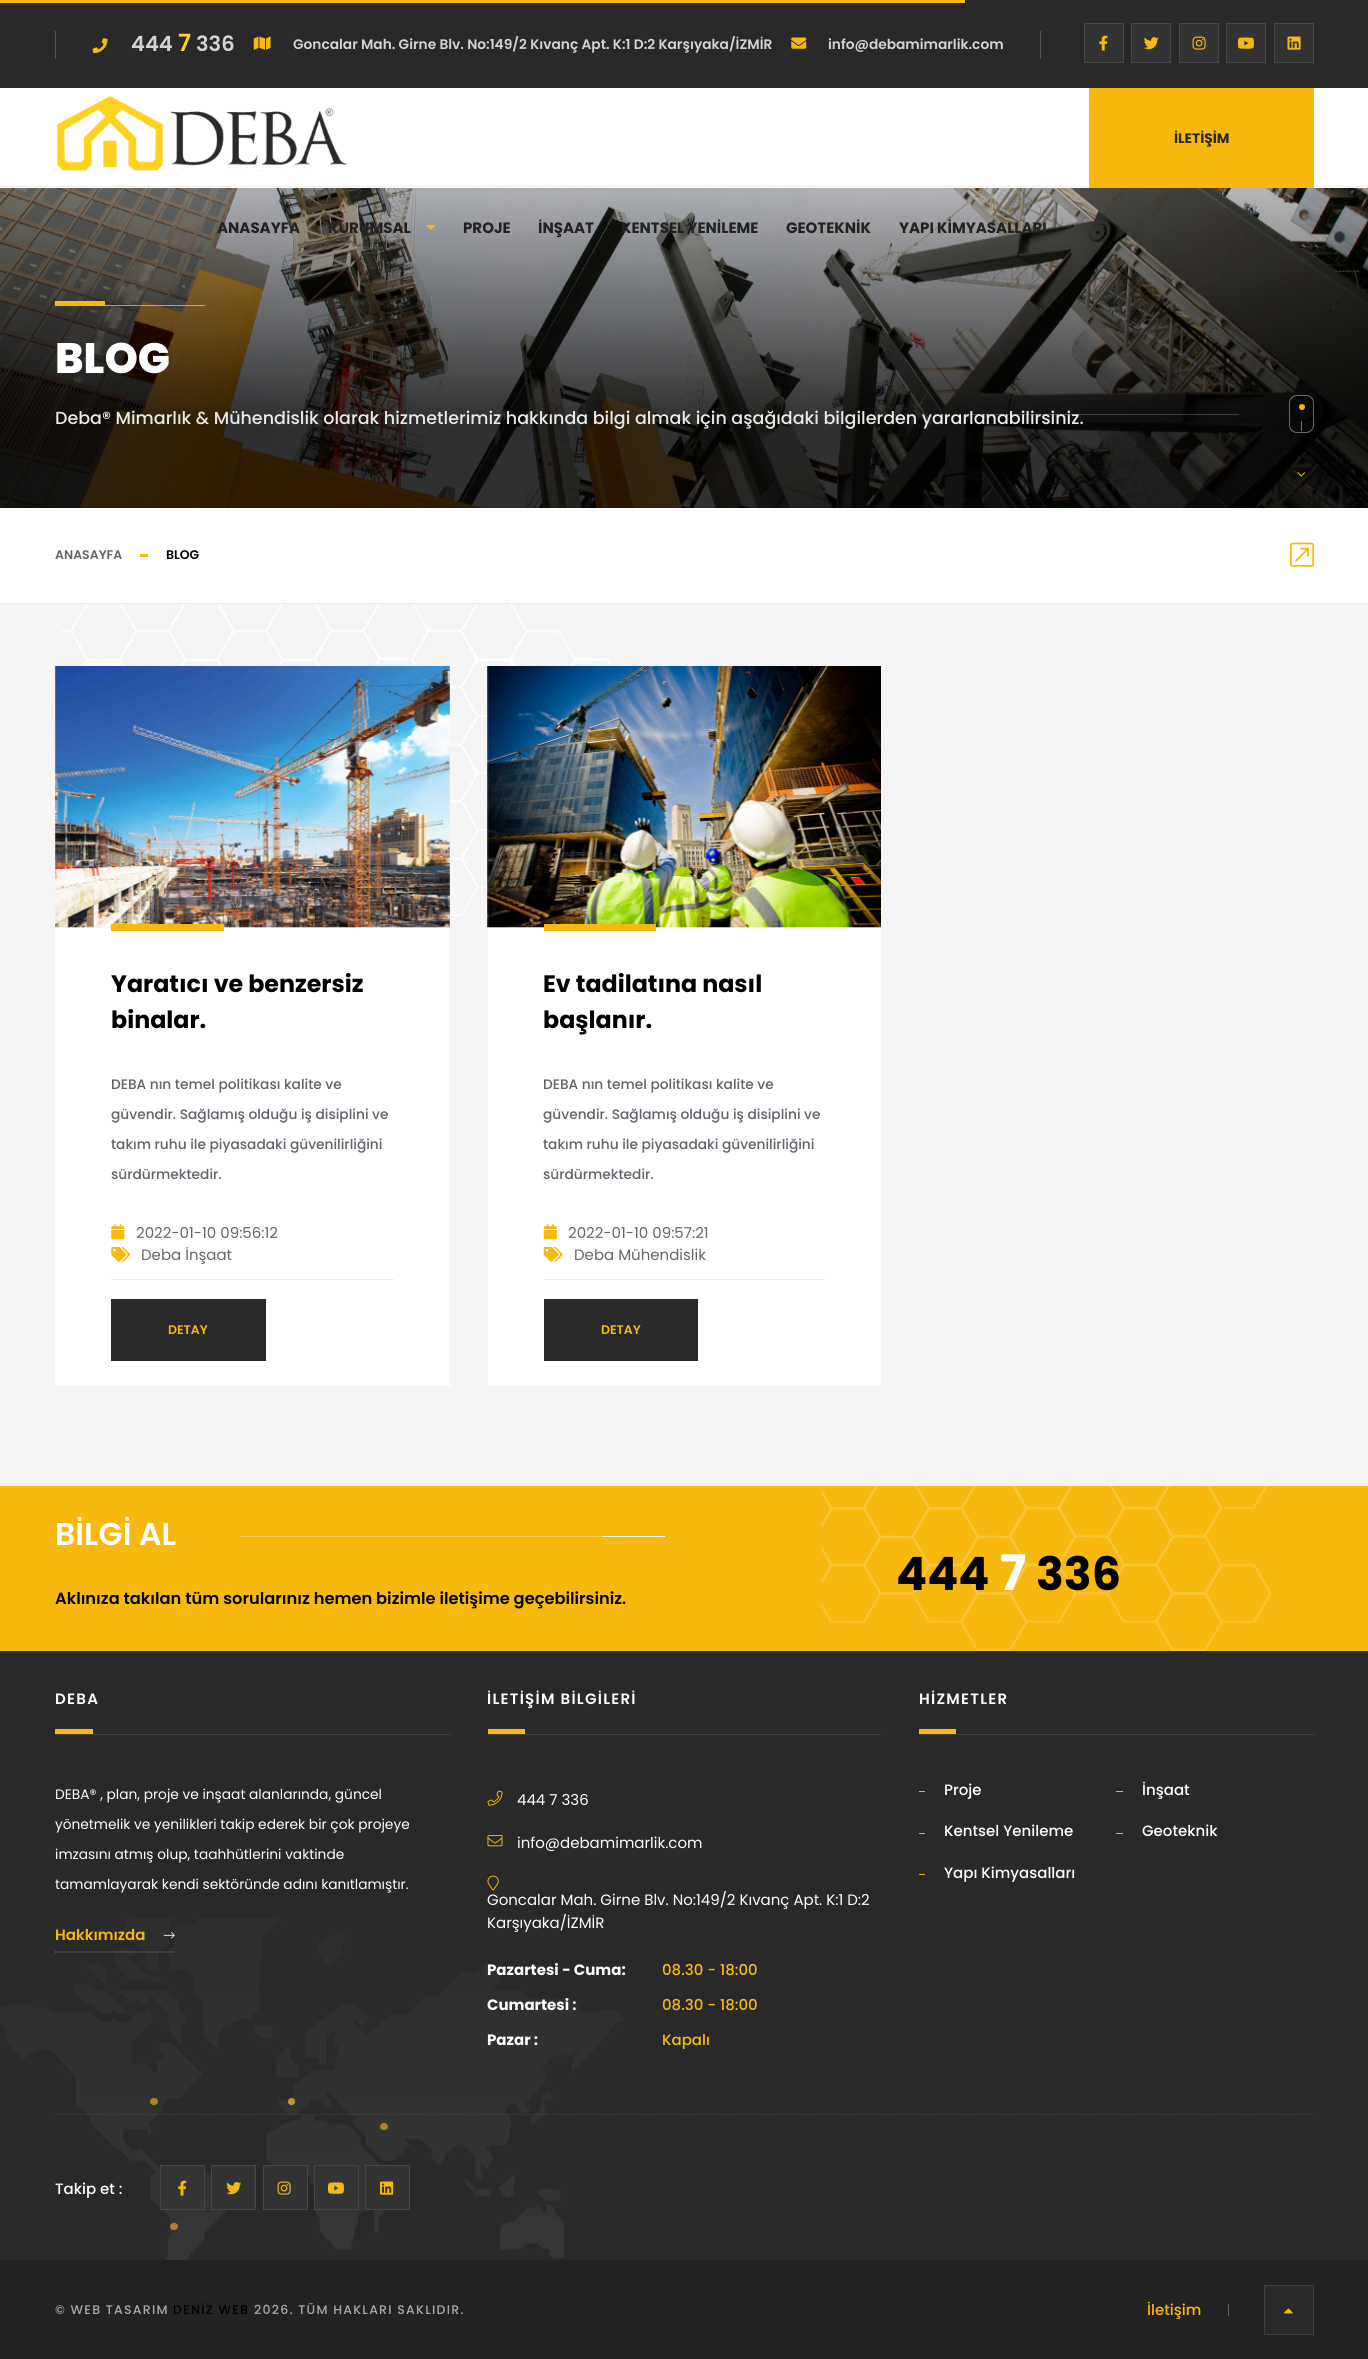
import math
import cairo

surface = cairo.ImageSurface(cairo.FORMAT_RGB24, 1368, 2359)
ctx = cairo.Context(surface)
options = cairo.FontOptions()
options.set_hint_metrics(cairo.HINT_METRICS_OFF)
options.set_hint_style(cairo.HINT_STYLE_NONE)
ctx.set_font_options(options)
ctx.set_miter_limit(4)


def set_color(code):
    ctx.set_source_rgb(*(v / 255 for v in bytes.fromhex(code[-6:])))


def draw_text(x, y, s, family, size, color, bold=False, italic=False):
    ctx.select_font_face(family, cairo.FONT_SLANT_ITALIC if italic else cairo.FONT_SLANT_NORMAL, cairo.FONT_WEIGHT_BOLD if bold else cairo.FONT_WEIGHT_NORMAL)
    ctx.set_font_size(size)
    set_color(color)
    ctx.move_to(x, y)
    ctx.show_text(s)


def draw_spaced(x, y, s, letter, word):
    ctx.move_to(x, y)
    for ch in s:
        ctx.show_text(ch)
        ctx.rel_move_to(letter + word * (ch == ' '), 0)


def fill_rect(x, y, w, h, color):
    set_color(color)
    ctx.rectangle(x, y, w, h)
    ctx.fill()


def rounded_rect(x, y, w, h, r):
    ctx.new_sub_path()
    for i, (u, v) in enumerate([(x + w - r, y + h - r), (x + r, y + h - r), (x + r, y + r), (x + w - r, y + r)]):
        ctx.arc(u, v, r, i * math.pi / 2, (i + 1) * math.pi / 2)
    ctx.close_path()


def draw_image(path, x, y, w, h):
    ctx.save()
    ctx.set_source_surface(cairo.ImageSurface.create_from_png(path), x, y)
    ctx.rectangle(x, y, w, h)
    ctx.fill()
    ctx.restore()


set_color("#292929")
ctx.paint()
fill_rect(0, 0, 965, 3, "#f7b90f")
fill_rect(55, 31, 1, 28, "#565656")
draw_image("assets/img1.png", 92, 38, 16, 16)
draw_text(131, 51, "444", "Poppins SemiBold", 21, "#d4d4d4")
draw_text(178, 51, "7", "Poppins SemiBold", 23.75, "#fed21d")
draw_text(196, 51, "336", "Poppins SemiBold", 21, "#d4d4d4")
draw_image("assets/img2.png", 253, 36, 18, 14)
draw_text(293, 49, "Goncalar Mah. Girne Blv. No:149/2 Kıvanç Apt. K:1 D:2 Karşıyaka/İZMİR", "Poppins SemiBold", 13.75, "#d4d4d4")
draw_image("assets/img3.png", 791, 37, 16, 12)
draw_text(828, 49, "info@debamimarlik.com", "Poppins SemiBold", 13.75, "#d4d4d4")
fill_rect(1040, 31, 1, 28, "#565656")
set_color("#333333")
ctx.rectangle(1084.5, 23.5, 39, 39)
ctx.fill_preserve()
set_color("#474747")
ctx.set_line_width(1)
ctx.stroke()
draw_image("assets/img4.png", 1099, 35, 9, 16)
set_color("#333333")
ctx.rectangle(1131.5, 23.5, 39, 39)
ctx.fill_preserve()
set_color("#474747")
ctx.stroke()
draw_image("assets/img5.png", 1144, 37, 15, 13)
set_color("#333333")
ctx.rectangle(1179.5, 23.5, 39, 39)
ctx.fill_preserve()
set_color("#474747")
ctx.stroke()
draw_image("assets/img6.png", 1192, 36, 14, 14)
set_color("#333333")
ctx.rectangle(1226.5, 23.5, 39, 39)
ctx.fill_preserve()
set_color("#474747")
ctx.stroke()
draw_image("assets/img7.png", 1237, 37, 17, 12)
set_color("#333333")
ctx.rectangle(1274.5, 23.5, 39, 39)
ctx.fill_preserve()
set_color("#474747")
ctx.stroke()
draw_image("assets/img8.png", 1287, 36, 14, 14)
fill_rect(0, 88, 1368, 100, "#ffffff")
fill_rect(0, 186, 1368, 1, "#eeeeee")
draw_image("assets/img9.png", 56, 96, 292, 76)
fill_rect(1089, 88, 225, 100, "#f7b90f")
draw_text(1174, 143, "İLETİŞİM", "Poppins", 13.75, "#292929", bold=True)
draw_image("assets/img11.png", 0, 188, 1368, 320)
draw_text(217, 233, "ANASAYFA", "Poppins", 15, "#222222", bold=True)
draw_text(328, 233, "KURUMSAL", "Poppins", 15, "#222222", bold=True)
draw_image("assets/img10.png", 426, 225, 10, 5)
draw_text(463, 233, "PROJE", "Poppins", 15, "#222222", bold=True)
draw_text(538, 233, "İNŞAAT", "Poppins", 15, "#222222", bold=True)
draw_text(621, 233, "KENTSEL YENİLEME", "Poppins", 15, "#222222", bold=True)
draw_text(786, 233, "GEOTEKNİK", "Poppins", 15, "#222222", bold=True)
draw_text(899, 233, "YAPI KİMYASALLARI", "Poppins", 15, "#222222", bold=True)
fill_rect(55, 301, 50, 5, "#f7b90f")
ctx.set_source_rgba(1, 1, 1, 0.5)
ctx.rectangle(105, 305, 100, 1)
ctx.fill()
draw_text(55, 373, "BLOG", "Poppins ExtraBold", 42.5, "#ffffff")
draw_text(55, 424, "Deba® Mimarlık & Mühendislik olarak hizmetlerimiz hakkında bilgi almak için aşağıdaki bilgilerden yararlanabilirsiniz.", "Poppins Medium", 17.5, "#e9e9e8")
ctx.set_source_rgba(1, 1, 1, 0.2)
ctx.rectangle(964, 414, 275, 1)
ctx.fill()
rounded_rect(1289.5, 395.5, 24, 37, 7.5)
ctx.set_source_rgba(1, 1, 1, 0.4)
ctx.stroke()
set_color("#f7b90f")
ctx.arc(1302, 407, 3, 0, 2 * math.pi)
ctx.fill()
ctx.set_source_rgba(1, 1, 1, 0.4)
ctx.rectangle(1301, 421, 1, 10)
ctx.fill()
draw_image("assets/img12.png", 1297, 472, 8, 5)
fill_rect(0, 508, 1368, 95, "#ffffff")
fill_rect(0, 603, 1368, 1, "#eeeeee")
draw_text(55, 559, "ANASAYFA", "Poppins SemiBold", 12.5, "#666666")
fill_rect(140, 554, 8, 3, "#f7b90f")
draw_text(166, 559, "BLOG", "Poppins SemiBold", 12.5, "#000000")
draw_image("assets/img13.png", 1290, 542, 25, 25)
fill_rect(0, 604, 1368, 882, "#f5f5f5")
draw_image("assets/img14.png", 62, 604, 551, 312)
set_color("#ffffff")
ctx.new_path()
ctx.move_to(89, 662)
ctx.line_to(135, 689)
ctx.line_to(120, 715)
ctx.line_to(73, 689)
ctx.close_path()
ctx.fill()
ctx.new_path()
ctx.move_to(134, 688)
ctx.line_to(89, 662)
ctx.line_to(119, 662)
ctx.close_path()
ctx.fill()
draw_image("assets/img15.png", 55, 666, 395, 262)
fill_rect(55, 928, 395, 458, "#ffffff")
fill_rect(111, 924, 113, 7, "#f7b90f")
draw_text(111, 992, "Yaratıcı ve benzersiz", "Poppins", 23.75, "#000000", bold=True)
draw_text(111, 1028, "binalar.", "Poppins", 23.75, "#000000", bold=True)
draw_text(111, 1089, "DEBA nın temel politikası kalite ve", "Poppins Medium", 13.75, "#5e646a")
draw_text(111, 1119, "güvendir. Sağlamış olduğu iş disiplini ve", "Poppins Medium", 13.75, "#5e646a")
draw_text(111, 1149, "takım ruhu ile piyasadaki güvenilirliğini", "Poppins Medium", 13.75, "#5e646a")
draw_text(111, 1179, "sürdürmektedir.", "Poppins Medium", 13.75, "#5e646a")
draw_image("assets/img16.png", 111, 1224, 14, 16)
draw_text(136, 1238, "2022-01-10 09:56:12", "Poppins", 15, "#666666")
draw_image("assets/img17.png", 111, 1246, 19, 16)
draw_text(141, 1260, "Deba İnşaat", "Poppins", 15, "#666666")
fill_rect(111, 1279, 283, 1, "#eeeeee")
fill_rect(111, 1299, 155, 62, "#292929")
draw_text(168, 1334, "DETAY", "Poppins SemiBold", 12.5, "#f7b90f")
draw_image("assets/img18.png", 487, 666, 394, 262)
fill_rect(488, 928, 393, 458, "#ffffff")
fill_rect(544, 924, 112, 7, "#f7b90f")
draw_text(543, 992, "Ev tadilatına nasıl", "Poppins", 23.75, "#000000", bold=True)
draw_text(543, 1028, "başlanır.", "Poppins", 23.75, "#000000", bold=True)
draw_text(543, 1089, "DEBA nın temel politikası kalite ve", "Poppins Medium", 13.75, "#5e646a")
draw_text(543, 1119, "güvendir. Sağlamış olduğu iş disiplini ve", "Poppins Medium", 13.75, "#5e646a")
draw_text(543, 1149, "takım ruhu ile piyasadaki güvenilirliğini", "Poppins Medium", 13.75, "#5e646a")
draw_text(543, 1179, "sürdürmektedir.", "Poppins Medium", 13.75, "#5e646a")
draw_image("assets/img19.png", 543, 1224, 14, 16)
draw_text(568, 1238, "2022-01-10 09:57:21", "Poppins", 15, "#666666")
draw_image("assets/img20.png", 543, 1246, 20, 16)
draw_text(574, 1260, "Deba Mühendislik", "Poppins", 15, "#666666")
fill_rect(544, 1279, 281, 1, "#eeeeee")
fill_rect(544, 1299, 154, 62, "#292929")
draw_text(601, 1334, "DETAY", "Poppins SemiBold", 12.5, "#f7b90f")
fill_rect(0, 1486, 1368, 165, "#f7b90f")
draw_image("assets/img21.png", 821, 1486, 451, 165)
draw_text(55, 1545, "BİLGİ AL", "Poppins SemiBold", 31.5, "#ffffff")
fill_rect(239, 1536, 364, 1, "#f9ce57")
fill_rect(603, 1536, 62, 1, "#ffffff")
draw_text(55, 1604, "Aklınıza takılan tüm sorularınız hemen bizimle iletişime geçebilirsiniz.", "Poppins SemiBold", 16.25, "#000000")
draw_text(896, 1590, "444", "Poppins", 46, "#000000", bold=True)
draw_text(1000, 1590, "7", "Poppins", 49, "#ffffff", bold=True)
draw_text(1036, 1590, "336", "Poppins", 46, "#000000", bold=True)
ctx.select_font_face("Poppins SemiBold")
ctx.set_font_size(15)
set_color("#ffffff")
draw_spaced(55, 1704, "DEBA", 1.25, 0)
fill_rect(55, 1729, 38, 5, "#f7b90f")
fill_rect(55, 1734, 395, 1, "#3e3e3e")
draw_text(55, 1799, "DEBA® , plan, proje ve inşaat alanlarında, güncel", "Poppins", 13.75, "#ffffff")
draw_text(55, 1829, "yönetmelik ve yenilikleri takip ederek bir çok projeye", "Poppins", 13.75, "#ffffff")
draw_text(55, 1859, "imzasını atmış olup, taahhütlerini vaktinde", "Poppins", 13.75, "#ffffff")
draw_text(55, 1889, "tamamlayarak kendi sektöründe adını kanıtlamıştır.", "Poppins", 13.75, "#ffffff")
draw_image("assets/img29.png", 0, 1918, 624, 342)
ctx.new_path()
ctx.move_to(55, 1952)
ctx.line_to(175, 1952)
ctx.set_source_rgba(1, 1, 1, 0.3)
ctx.set_line_width(1.2)
ctx.set_dash([1.25, 1.25])
ctx.stroke()
draw_text(55, 1940, "Hakkımızda", "Poppins SemiBold", 15, "#f7b90f")
draw_image("assets/img22.png", 163, 1932, 12, 7)
set_color("#ffffff")
draw_spaced(487, 1704, "İLETİŞİM BİLGİLERİ", 1.25, 0)
fill_rect(488, 1729, 37, 5, "#f7b90f")
fill_rect(488, 1734, 393, 1, "#3e3e3e")
draw_image("assets/img23.png", 487, 1790, 16, 16)
draw_text(517, 1805, "444 7 336", "Poppins", 15, "#ffffff")
draw_image("assets/img24.png", 487, 1835, 16, 12)
draw_text(517, 1848, "info@debamimarlik.com", "Poppins", 15, "#ffffff")
draw_image("assets/img25.png", 487, 1875, 12, 16)
draw_text(487, 1905, "Goncalar Mah. Girne Blv. No:149/2 Kıvanç Apt. K:1 D:2", "Poppins", 15, "#ffffff")
draw_text(487, 1928, "Karşıyaka/İZMİR", "Poppins", 15, "#ffffff")
draw_text(487, 1975, "Pazartesi - Cuma:", "Poppins", 15, "#ffffff", bold=True)
draw_text(662, 1975, "08.30 - 18:00", "Poppins Medium", 15, "#f7b90f")
draw_text(487, 2010, "Cumartesi :", "Poppins", 15, "#ffffff", bold=True)
draw_text(662, 2010, "08.30 - 18:00", "Poppins Medium", 15, "#f7b90f")
draw_text(487, 2045, "Pazar :", "Poppins", 15, "#ffffff", bold=True)
draw_text(662, 2045, "Kapalı", "Poppins Medium", 15, "#f7b90f")
ctx.select_font_face("Poppins SemiBold")
set_color("#ffffff")
draw_spaced(919, 1704, "HİZMETLER", 1.25, 0)
fill_rect(919, 1729, 37, 5, "#f7b90f")
fill_rect(919, 1734, 395, 1, "#3e3e3e")
fill_rect(919, 1791, 6, 1, "#f7b90f")
draw_text(944, 1795, "Proje", "Poppins Medium", 15, "#ffffff")
fill_rect(1116, 1791, 7, 1, "#f7b90f")
draw_text(1142, 1795, "İnşaat", "Poppins Medium", 15, "#ffffff")
fill_rect(919, 1833, 6, 1, "#f7b90f")
draw_text(944, 1836, "Kentsel Yenileme", "Poppins Medium", 15, "#ffffff")
fill_rect(1116, 1833, 7, 1, "#f7b90f")
draw_text(1142, 1836, "Geoteknik", "Poppins Medium", 15, "#ffffff")
fill_rect(919, 1874, 6, 1, "#f7b90f")
draw_text(944, 1878, "Yapı Kimyasalları", "Poppins Medium", 15, "#ffffff")
ctx.new_path()
ctx.move_to(55, 2114.5)
ctx.line_to(1314, 2114.5)
ctx.set_source_rgba(1, 1, 1, 0.1)
ctx.stroke()
draw_text(55, 2194, "Takip et :", "Poppins Medium", 15, "#ffffff")
fill_rect(161, 2166, 43, 2, "#333333")
ctx.rectangle(160.5, 2165.5, 44, 44)
set_color("#474747")
ctx.set_line_width(1)
ctx.set_dash([])
ctx.stroke()
draw_image("assets/img26.png", 178, 2180, 9, 16)
set_color("#333333")
ctx.rectangle(211.5, 2165.5, 44, 44)
ctx.fill_preserve()
set_color("#474747")
ctx.stroke()
draw_image("assets/img27.png", 226, 2182, 16, 13)
set_color("#333333")
ctx.rectangle(263.5, 2165.5, 44, 44)
ctx.fill_preserve()
set_color("#474747")
ctx.stroke()
draw_image("assets/img6.png", 277, 2181, 14, 14)
ctx.rectangle(314.5, 2165.5, 44, 44)
ctx.stroke()
draw_image("assets/img7.png", 327, 2182, 17, 12)
set_color("#333333")
ctx.rectangle(365.5, 2165.5, 44, 44)
ctx.fill_preserve()
set_color("#474747")
ctx.stroke()
draw_image("assets/img28.png", 380, 2181, 14, 14)
set_color("#a8831d")
rounded_rect(150, 2098, 8, 7, 3.5)
ctx.fill()
ctx.set_source_rgba(1, 1, 1, 0.24)
ctx.arc(291.5, 2101.5, 3.5, 0, 2 * math.pi)
ctx.fill()
ctx.set_source_rgba(0.969, 0.725, 0.059, 0.6)
ctx.arc(291.5, 2101.5, 3.5, 0, 2 * math.pi)
ctx.fill()
set_color("#a9831d")
rounded_rect(380, 2123, 8, 7, 3.5)
ctx.fill()
set_color("#aa841e")
rounded_rect(170, 2223, 8, 7, 3.5)
ctx.fill()
fill_rect(0, 2260, 1368, 99, "#222222")
ctx.set_font_size(12.5)
set_color("#a9a9a9")
draw_spaced(55, 2314, "© WEB TASARIM", 1.25, 0)
set_color("#000000")
draw_spaced(173, 2314, "DENİZ WEB", 1.25, 0)
set_color("#a9a9a9")
draw_spaced(254, 2314, "2026. TÜM HAKLARI SAKLIDIR.", 1.25, 0)
draw_text(1147, 2315, "İletişim", "Poppins Medium", 15, "#f7b90f")
fill_rect(1228, 2304, 1, 12, "#646464")
set_color("#292929")
ctx.rectangle(1264.5, 2285.5, 49, 49)
ctx.fill_preserve()
set_color("#3e3e3e")
ctx.stroke()
draw_image("assets/img30.png", 1284, 2308, 9, 6)
surface.write_to_png("output.png")
